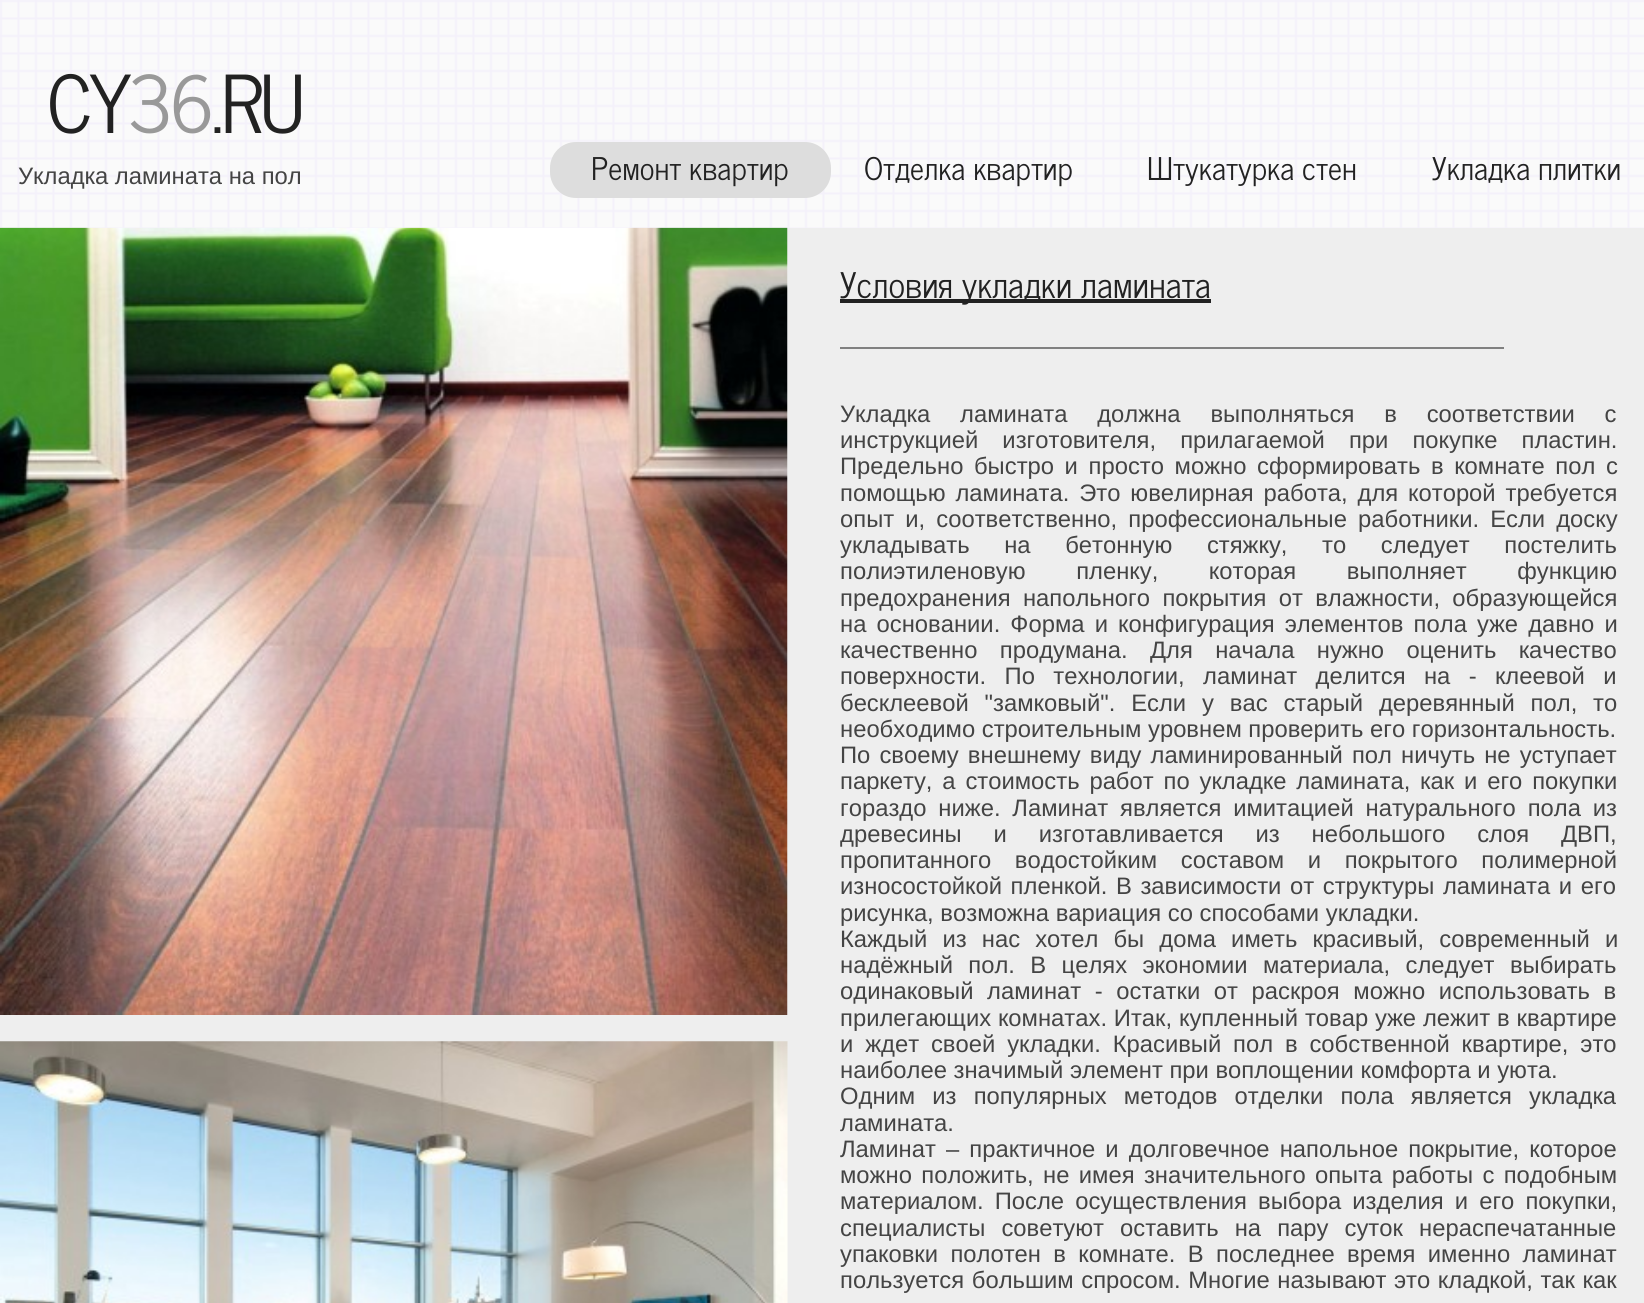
import math
import cairo

surface = cairo.ImageSurface(cairo.FORMAT_RGB24, 1644, 1303)
ctx = cairo.Context(surface)
options = cairo.FontOptions()
options.set_hint_metrics(cairo.HINT_METRICS_OFF)
options.set_hint_style(cairo.HINT_STYLE_NONE)
ctx.set_font_options(options)
ctx.set_miter_limit(4)


def set_color(code):
    ctx.set_source_rgb(*(v / 255 for v in bytes.fromhex(code[-6:])))


def draw_text(x, y, s, family, size, color, bold=False, italic=False):
    ctx.select_font_face(family, cairo.FONT_SLANT_ITALIC if italic else cairo.FONT_SLANT_NORMAL, cairo.FONT_WEIGHT_BOLD if bold else cairo.FONT_WEIGHT_NORMAL)
    ctx.set_font_size(size)
    set_color(color)
    ctx.move_to(x, y)
    ctx.show_text(s)


def draw_spaced(x, y, s, letter, word):
    ctx.move_to(x, y)
    for ch in s:
        ctx.show_text(ch)
        ctx.rel_move_to(letter + word * (ch == ' '), 0)


def fill_rect(x, y, w, h, color):
    set_color(color)
    ctx.rectangle(x, y, w, h)
    ctx.fill()


def rounded_rect(x, y, w, h, r):
    ctx.new_sub_path()
    for i, (u, v) in enumerate([(x + w - r, y + h - r), (x + r, y + h - r), (x + r, y + r), (x + w - r, y + r)]):
        ctx.arc(u, v, r, i * math.pi / 2, (i + 1) * math.pi / 2)
    ctx.close_path()


def draw_image(path, x, y, w, h):
    ctx.save()
    ctx.set_source_surface(cairo.ImageSurface.create_from_png(path), x, y)
    ctx.rectangle(x, y, w, h)
    ctx.fill()
    ctx.restore()


set_color("#ffffff")
ctx.paint()
draw_image("assets/img1.png", 0, 0, 1644, 228)
ctx.select_font_face("News Cycle")
ctx.set_font_size(79)
set_color("#222222")
draw_spaced(47, 133, "CY", -3.5, 0)
set_color("#999999")
draw_spaced(128, 133, "36", -3.5, 0)
set_color("#222222")
draw_spaced(211, 133, ".RU", -3.5, 0)
draw_text(18, 184, "Укладка ламината на пол", "Liberation Sans", 23.8, "#444444")
set_color("#dddddd")
rounded_rect(550, 142, 281, 56, 26)
ctx.fill()
draw_text(864, 180, "Отделка квартир", "News Cycle", 31, "#222222")
draw_text(591, 180, "Ремонт квартир", "News Cycle", 31, "#222222")
draw_text(1147, 180, "Штукатурка стен", "News Cycle", 31, "#222222")
draw_text(1432, 180, "Укладка плитки", "News Cycle", 31, "#222222")
fill_rect(0, 228, 1644, 1075, "#eeeeee")
draw_image("assets/img2.png", 0, 227, 788, 788)
draw_image("assets/img3.png", 0, 1041, 788, 262)
fill_rect(840, 299, 371, 4, "#222222")
draw_text(840, 298, "Условия укладки ламината", "News Cycle", 35, "#222222")
fill_rect(840, 347, 664, 2, "#808080")
ctx.select_font_face("Liberation Sans")
ctx.set_font_size(23.8)
set_color("#444444")
draw_spaced(840, 422, "Укладка ламината должна выполняться в соответствии с", 0, 23.25)
draw_spaced(840, 448, "инструкцией изготовителя, прилагаемой при покупке пластин.", 0, 17.5)
draw_spaced(840, 474, "Предельно быстро и просто можно сформировать в комнате пол с", 0, 4)
draw_spaced(840, 501, "помощью ламината. Это ювелирная работа, для которой требуется", 0, 3.25)
draw_spaced(840, 527, "опыт и, соответственно, профессиональные работники. Если доску", 0, 4.5)
draw_spaced(840, 553, "укладывать на бетонную стяжку, то следует постелить", 0, 28)
draw_spaced(840, 579, "полиэтиленовую пленку, которая выполняет функцию", 0, 44)
draw_spaced(840, 606, "предохранения напольного покрытия от влажности, образующейся", 0, 5.75)
draw_spaced(840, 632, "на основании. Форма и конфигурация элементов пола уже давно и", 0, 3.5)
draw_spaced(840, 658, "качественно продумана. Для начала нужно оценить качество", 0, 15.75)
draw_spaced(840, 684, "поверхности. По технологии, ламинат делится на - клеевой и", 0, 11.75)
draw_spaced(840, 711, "бесклеевой \"замковый\". Если у вас старый деревянный пол, то", 0, 9.25)
draw_text(840, 737, "необходимо строительным уровнем проверить его горизонтальность.", "Liberation Sans", 23.8, "#444444")
draw_spaced(840, 763, "По своему внешнему виду ламинированный пол ничуть не уступает", 0, 2.5)
draw_spaced(840, 789, "паркету, а стоимость работ по укладке ламината, как и его покупки", 0, 3.25)
draw_spaced(840, 816, "гораздо ниже. Ламинат является имитацией натурального пола из", 0, 5.25)
draw_spaced(840, 842, "древесины и изготавливается из небольшого слоя ДВП,", 0, 25.25)
draw_spaced(840, 868, "пропитанного водостойким составом и покрытого полимерной", 0, 17)
draw_spaced(840, 894, "износостойкой пленкой. В зависимости от структуры ламината и его", 0, 2)
draw_text(840, 921, "рисунка, возможна вариация со способами укладки.", "Liberation Sans", 23.8, "#444444")
draw_spaced(840, 947, "Каждый из нас хотел бы дома иметь красивый, современный и", 0, 8.5)
draw_spaced(840, 973, "надёжный пол. В целях экономии материала, следует выбирать", 0, 8.75)
draw_spaced(840, 999, "одинаковый ламинат - остатки от раскроя можно использовать в", 0, 7)
draw_spaced(840, 1026, "прилегающих комнатах. Итак, купленный товар уже лежит в квартире", 0, 0.25)
draw_spaced(840, 1052, "и ждет своей укладки. Красивый пол в собственной квартире, это", 0, 5.25)
draw_text(840, 1078, "наиболее значимый элемент при воплощении комфорта и уюта.", "Liberation Sans", 23.8, "#444444")
draw_spaced(840, 1104, "Одним из популярных методов отделки пола является укладка", 0, 10.5)
draw_text(840, 1131, "ламината.", "Liberation Sans", 23.8, "#444444")
draw_spaced(840, 1157, "Ламинат – практичное и долговечное напольное покрытие, которое", 0, 3.5)
draw_spaced(840, 1183, "можно положить, не имея значительного опыта работы с подобным", 0, 2.75)
draw_spaced(840, 1209, "материалом. После осуществления выбора изделия и его покупки,", 0, 4.5)
draw_spaced(840, 1236, "специалисты советуют оставить на пару суток нераспечатанные", 0, 9.5)
draw_spaced(840, 1262, "упаковки полотен в комнате. В последнее время именно ламинат", 0, 5.75)
draw_spaced(840, 1288, "пользуется большим спросом. Многие называют это кладкой, так как", 0, 1)
surface.write_to_png("output.png")
